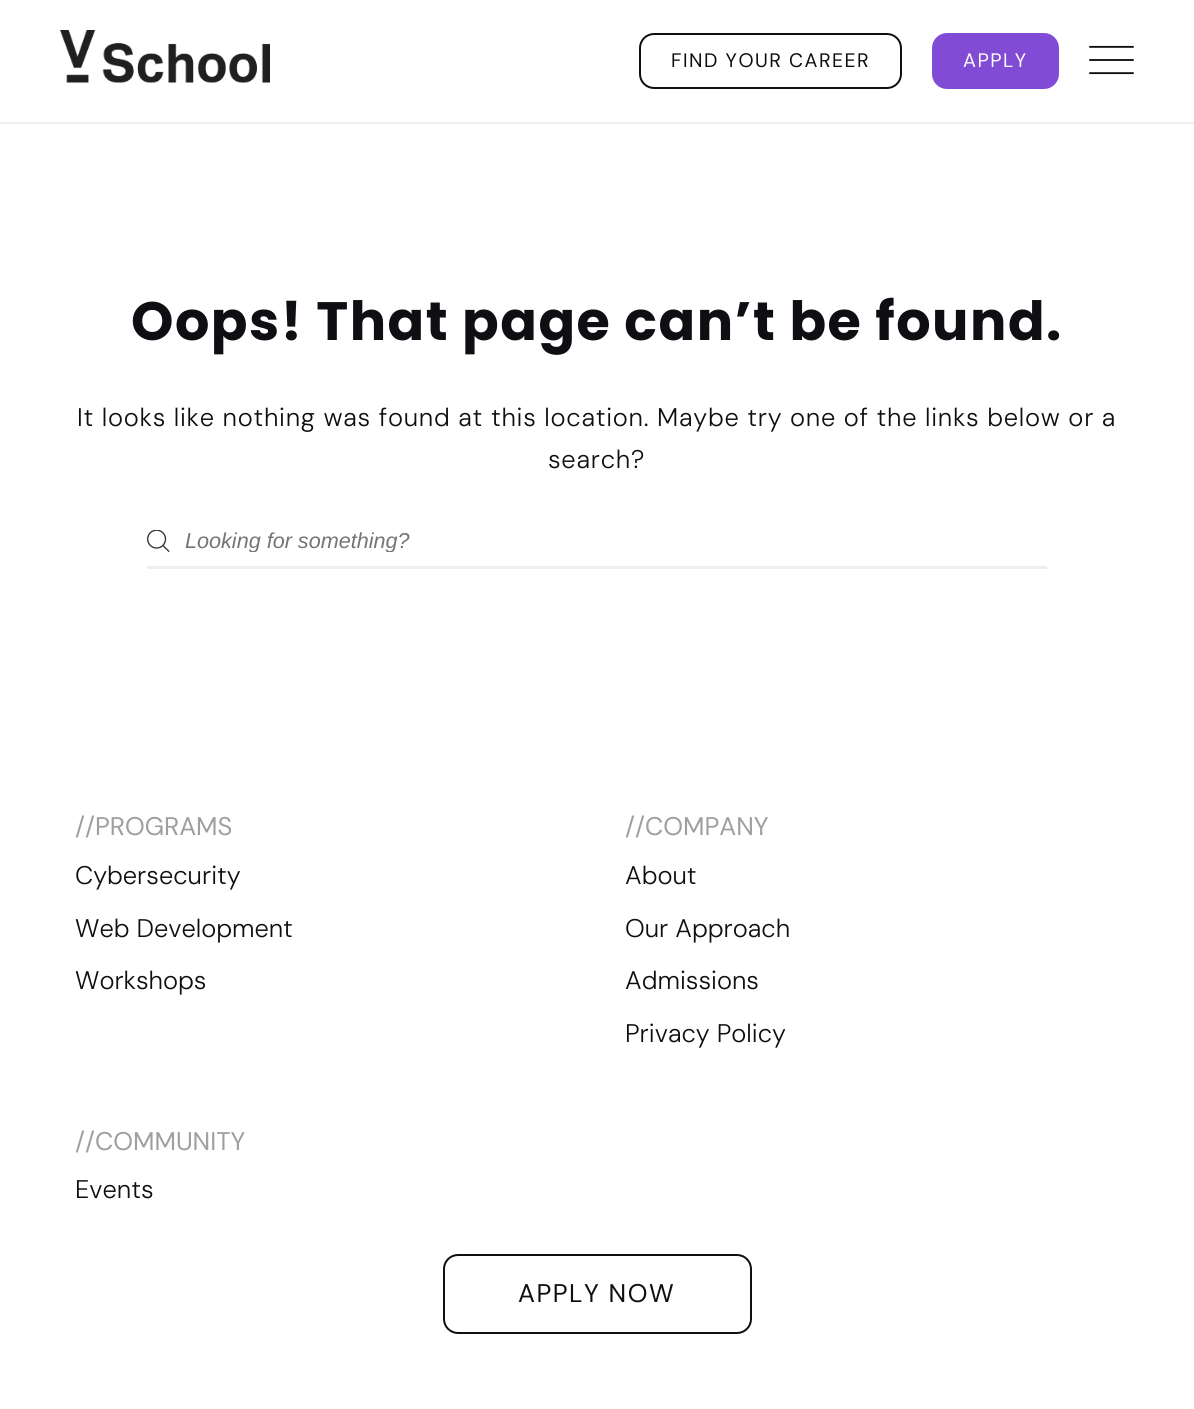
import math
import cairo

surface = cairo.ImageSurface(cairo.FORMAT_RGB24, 1194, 1409)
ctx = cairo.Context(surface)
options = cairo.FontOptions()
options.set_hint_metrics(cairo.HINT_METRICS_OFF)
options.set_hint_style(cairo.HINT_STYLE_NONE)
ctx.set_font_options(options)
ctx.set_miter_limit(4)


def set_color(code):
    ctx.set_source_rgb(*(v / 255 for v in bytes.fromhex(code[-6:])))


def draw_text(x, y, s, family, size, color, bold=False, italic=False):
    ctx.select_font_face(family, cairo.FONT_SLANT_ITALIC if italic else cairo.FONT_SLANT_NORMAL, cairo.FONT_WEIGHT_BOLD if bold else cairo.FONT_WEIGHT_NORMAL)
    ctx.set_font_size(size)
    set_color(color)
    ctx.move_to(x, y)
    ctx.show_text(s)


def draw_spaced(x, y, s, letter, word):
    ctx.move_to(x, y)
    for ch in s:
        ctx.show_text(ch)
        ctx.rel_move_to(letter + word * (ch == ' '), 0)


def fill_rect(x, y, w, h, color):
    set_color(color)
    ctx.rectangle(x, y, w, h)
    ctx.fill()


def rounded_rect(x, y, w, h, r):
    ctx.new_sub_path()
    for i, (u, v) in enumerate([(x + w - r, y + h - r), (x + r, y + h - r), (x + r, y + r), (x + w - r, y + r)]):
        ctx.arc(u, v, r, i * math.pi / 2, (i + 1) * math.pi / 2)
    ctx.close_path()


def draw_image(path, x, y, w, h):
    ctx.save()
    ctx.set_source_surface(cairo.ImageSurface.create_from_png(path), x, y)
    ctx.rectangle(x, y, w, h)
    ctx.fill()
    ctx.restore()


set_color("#ffffff")
ctx.paint()
fill_rect(0, 122, 1194, 2, "#f0eeeb")
draw_image("assets/img1.png", 60, 30, 210, 53)
rounded_rect(640, 34, 261, 54, 14)
set_color("#0f0e12")
ctx.stroke()
ctx.select_font_face("DM Sans")
ctx.set_font_size(19.5)
draw_spaced(671, 67, "FIND YOUR CAREER", 1.5, 0)
set_color("#824bd6")
rounded_rect(933, 34, 125, 54, 14)
ctx.fill_preserve()
ctx.stroke()
set_color("#ffffff")
draw_spaced(963, 67, "APPLY", 1.5, 0)
draw_image("assets/img2.png", 1089, 45, 45, 30)
ctx.select_font_face("Poppins", cairo.FONT_SLANT_NORMAL, cairo.FONT_WEIGHT_BOLD)
ctx.set_font_size(54)
set_color("#0f0e12")
draw_spaced(131, 340, "Oops! That page can’t be found.", 1.5, 0)
ctx.select_font_face("DM Sans Light")
ctx.set_font_size(25.5)
draw_spaced(77, 426, "It looks like nothing was found at this location. Maybe try one of the links below or a", 0.75, 0)
draw_spaced(548, 468, "search?", 0.75, 0)
draw_image("assets/img3.png", 147, 530, 23, 22)
fill_rect(147, 566, 900, 3, "#f0eeeb")
ctx.save()
ctx.rectangle(185, 528, 847, 24)
ctx.clip()
draw_text(185, 548, "Looking for something?", "Liberation Sans", 21.6, "#757575", italic=True)
ctx.restore()
draw_text(75, 835, "//PROGRAMS", "DM Sans", 25.5, "#9f9f9f")
draw_text(75, 884, "Cybersecurity", "DM Sans Light", 25.5, "#0f0e12")
draw_text(75, 937, "Web Development", "DM Sans Light", 25.5, "#0f0e12")
draw_text(75, 989, "Workshops", "DM Sans Light", 25.5, "#0f0e12")
draw_text(625, 835, "//COMPANY", "DM Sans", 25.5, "#9f9f9f")
draw_text(625, 884, "About", "DM Sans Light", 25.5, "#0f0e12")
draw_text(625, 937, "Our Approach", "DM Sans Light", 25.5, "#0f0e12")
draw_text(625, 989, "Admissions", "DM Sans Light", 25.5, "#0f0e12")
draw_text(625, 1042, "Privacy Policy", "DM Sans Light", 25.5, "#0f0e12")
draw_text(75, 1150, "//COMMUNITY", "DM Sans", 25.5, "#9f9f9f")
draw_text(75, 1198, "Events", "DM Sans Light", 25.5, "#0f0e12")
rounded_rect(444, 1255, 307, 78, 14)
ctx.stroke()
ctx.select_font_face("DM Sans")
draw_spaced(518, 1302, "APPLY NOW", 1.5, 0)
surface.write_to_png("output.png")
